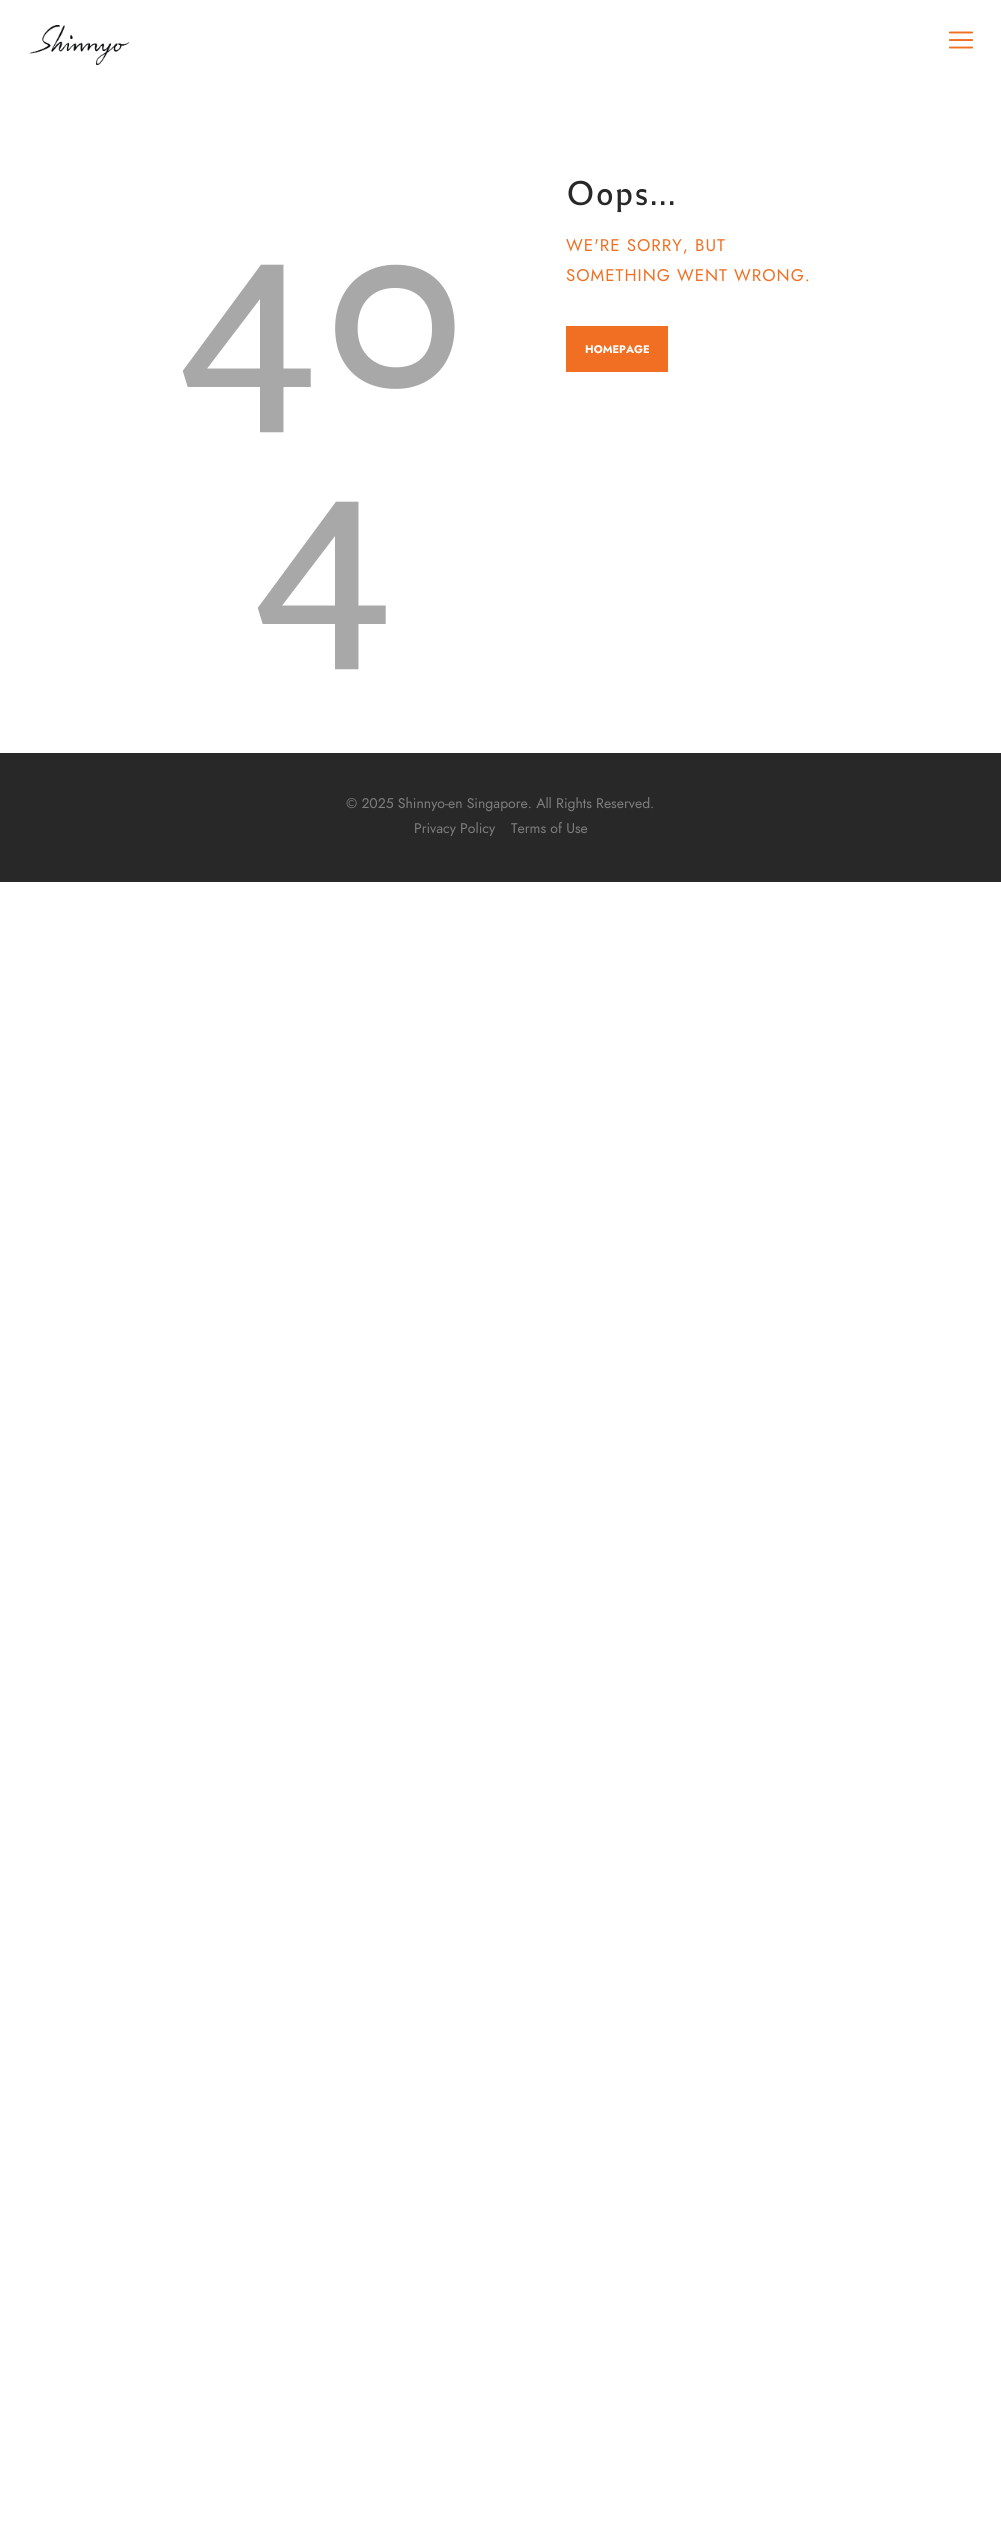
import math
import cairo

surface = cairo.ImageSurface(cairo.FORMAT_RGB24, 1001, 2530)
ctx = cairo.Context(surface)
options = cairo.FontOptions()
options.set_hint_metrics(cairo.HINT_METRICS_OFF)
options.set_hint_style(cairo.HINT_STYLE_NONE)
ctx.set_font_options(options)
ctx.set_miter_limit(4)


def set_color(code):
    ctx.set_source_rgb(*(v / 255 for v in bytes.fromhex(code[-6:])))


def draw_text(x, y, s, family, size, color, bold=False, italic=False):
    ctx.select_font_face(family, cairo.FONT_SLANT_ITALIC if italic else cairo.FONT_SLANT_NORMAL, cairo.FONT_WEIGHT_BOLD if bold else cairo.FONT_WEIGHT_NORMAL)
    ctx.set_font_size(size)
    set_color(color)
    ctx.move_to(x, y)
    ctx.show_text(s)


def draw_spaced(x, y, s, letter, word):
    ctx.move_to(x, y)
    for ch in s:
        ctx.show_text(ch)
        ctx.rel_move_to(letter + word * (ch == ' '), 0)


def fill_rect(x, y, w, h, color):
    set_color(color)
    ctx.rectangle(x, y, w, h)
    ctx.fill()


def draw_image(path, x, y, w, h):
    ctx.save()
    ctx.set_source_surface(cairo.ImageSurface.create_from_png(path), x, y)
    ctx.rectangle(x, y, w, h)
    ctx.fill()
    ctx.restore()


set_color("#ffffff")
ctx.paint()
draw_image("assets/img1.png", 29, 25, 101, 40)
draw_image("assets/img2.png", 948, 31, 26, 18)
draw_text(178, 387, "40", "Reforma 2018 Medium", 237, "#a8a8a8")
draw_text(253, 624, "4", "Reforma 2018 Medium", 237, "#a8a8a8")
ctx.set_font_size(32)
set_color("#282828")
draw_spaced(566, 205, "Oops...", 1, 0)
ctx.select_font_face("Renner")
ctx.set_font_size(16.9)
set_color("#f16f23")
draw_spaced(566, 251, "WE'RE SORRY, BUT", 1, 0)
draw_spaced(566, 281, "SOMETHING WENT WRONG.", 1, 0)
fill_rect(566, 326, 102, 46, "#f16f23")
draw_text(585, 353, "HOMEPAGE", "Renner", 11, "#ffffff", bold=True)
fill_rect(0, 753, 1001, 129, "#282828")
draw_text(346, 808, "© 2025 Shinnyo-en Singapore. All Rights Reserved.", "Renner", 14, "#7e7e7e")
draw_text(414, 833, "Privacy Policy", "Renner", 14, "#7e7e7e")
draw_text(511, 833, "Terms of Use", "Renner", 14, "#7e7e7e")
surface.write_to_png("output.png")
